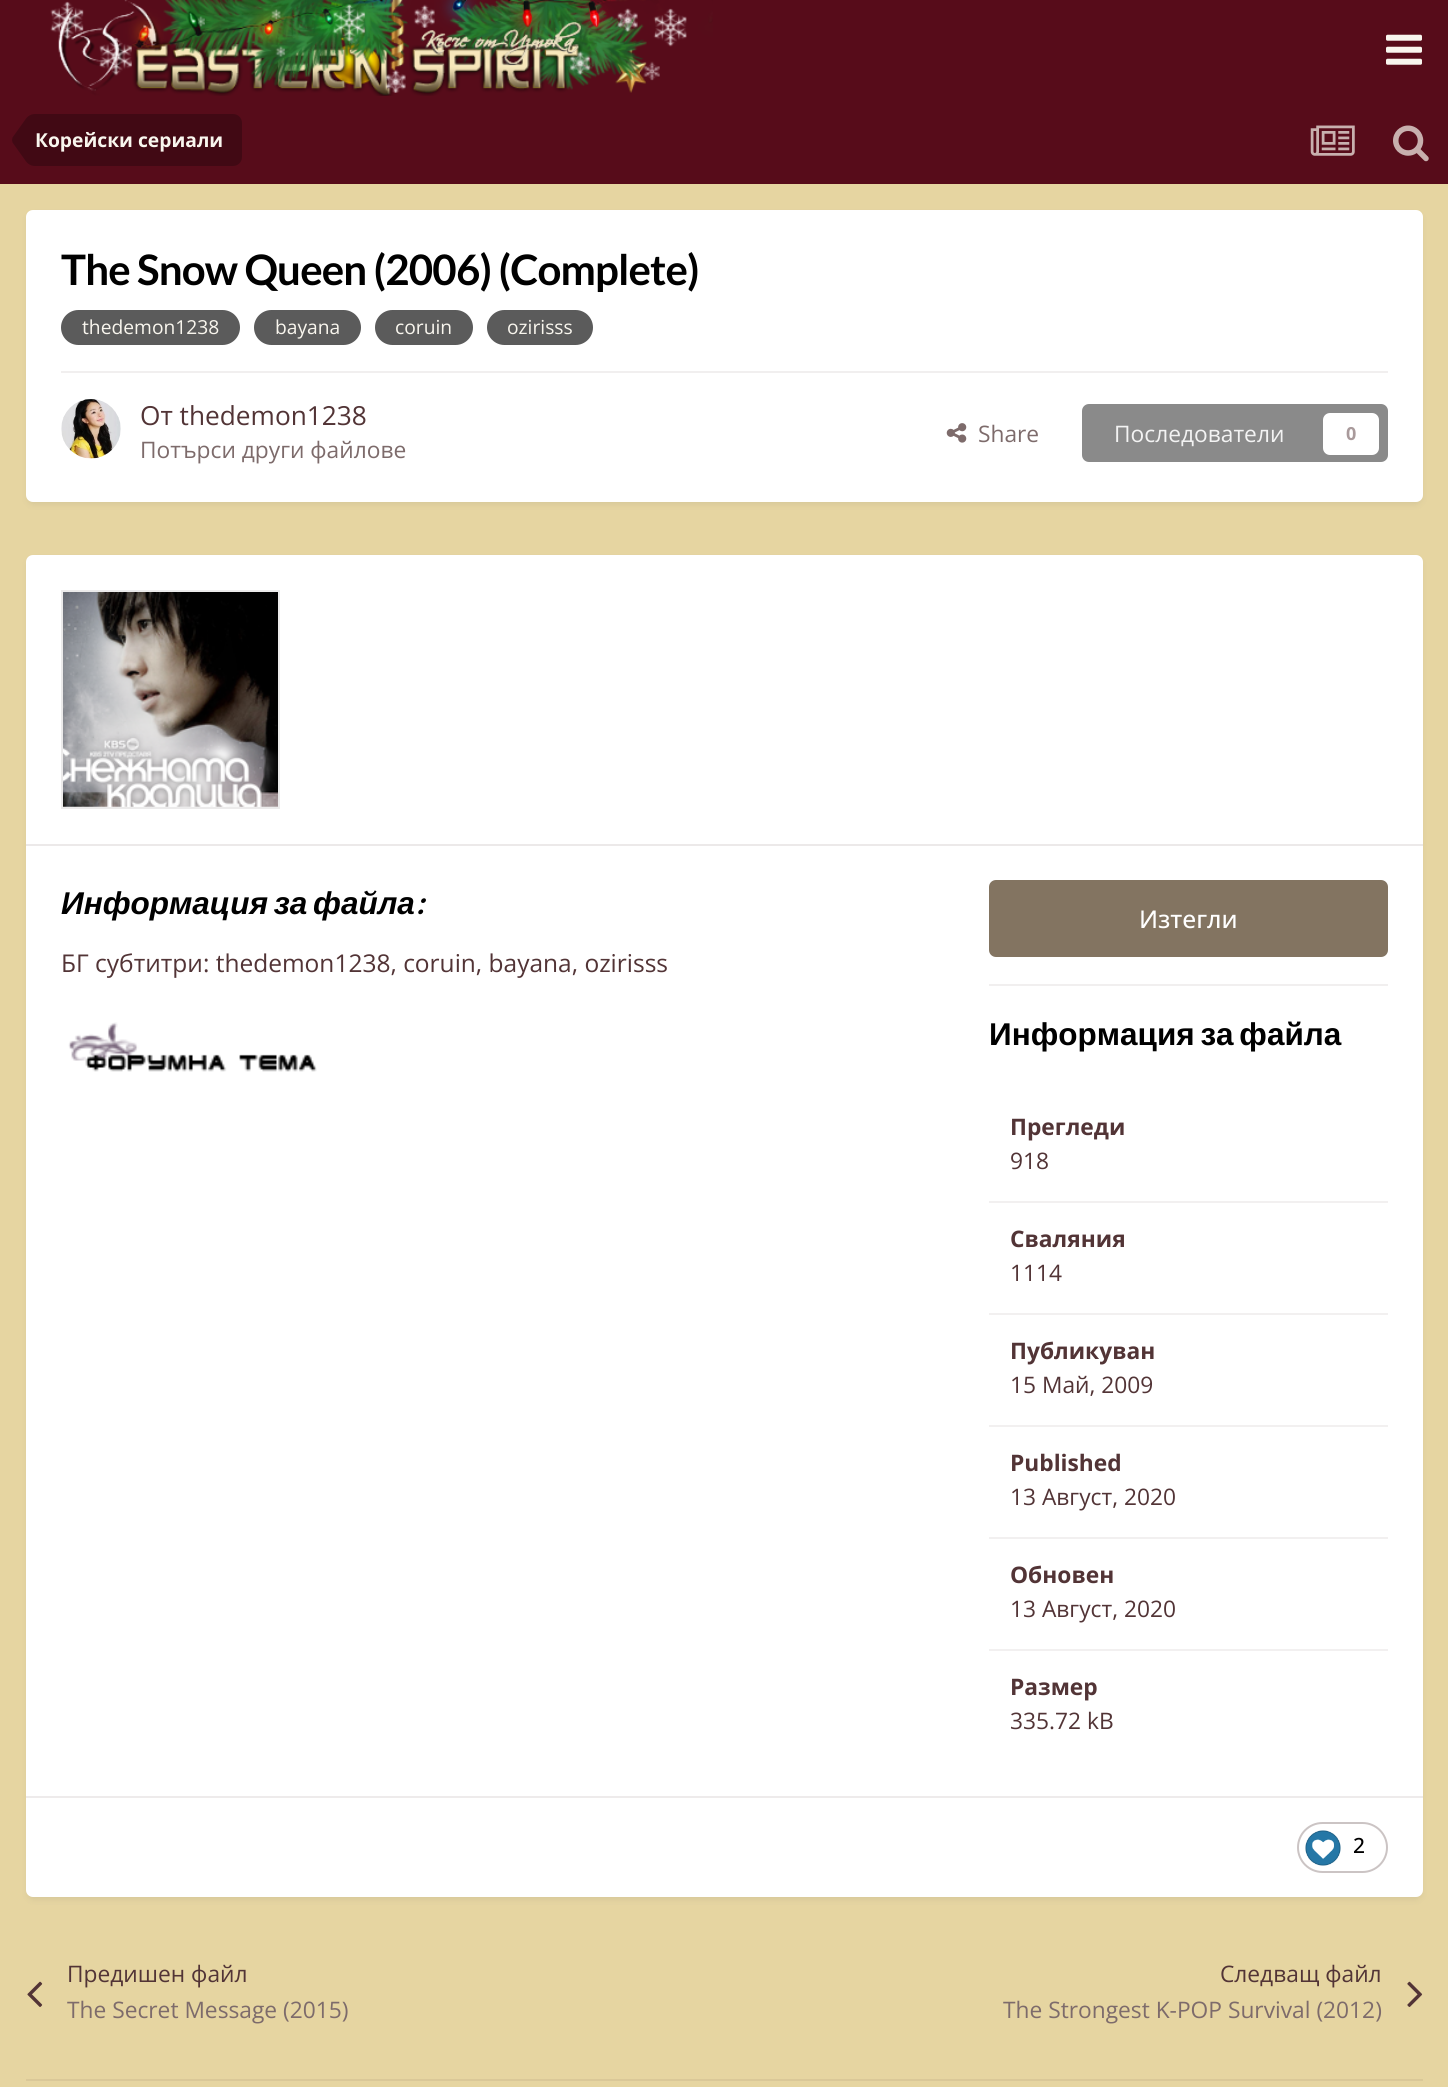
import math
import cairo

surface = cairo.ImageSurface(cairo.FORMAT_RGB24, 1448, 2087)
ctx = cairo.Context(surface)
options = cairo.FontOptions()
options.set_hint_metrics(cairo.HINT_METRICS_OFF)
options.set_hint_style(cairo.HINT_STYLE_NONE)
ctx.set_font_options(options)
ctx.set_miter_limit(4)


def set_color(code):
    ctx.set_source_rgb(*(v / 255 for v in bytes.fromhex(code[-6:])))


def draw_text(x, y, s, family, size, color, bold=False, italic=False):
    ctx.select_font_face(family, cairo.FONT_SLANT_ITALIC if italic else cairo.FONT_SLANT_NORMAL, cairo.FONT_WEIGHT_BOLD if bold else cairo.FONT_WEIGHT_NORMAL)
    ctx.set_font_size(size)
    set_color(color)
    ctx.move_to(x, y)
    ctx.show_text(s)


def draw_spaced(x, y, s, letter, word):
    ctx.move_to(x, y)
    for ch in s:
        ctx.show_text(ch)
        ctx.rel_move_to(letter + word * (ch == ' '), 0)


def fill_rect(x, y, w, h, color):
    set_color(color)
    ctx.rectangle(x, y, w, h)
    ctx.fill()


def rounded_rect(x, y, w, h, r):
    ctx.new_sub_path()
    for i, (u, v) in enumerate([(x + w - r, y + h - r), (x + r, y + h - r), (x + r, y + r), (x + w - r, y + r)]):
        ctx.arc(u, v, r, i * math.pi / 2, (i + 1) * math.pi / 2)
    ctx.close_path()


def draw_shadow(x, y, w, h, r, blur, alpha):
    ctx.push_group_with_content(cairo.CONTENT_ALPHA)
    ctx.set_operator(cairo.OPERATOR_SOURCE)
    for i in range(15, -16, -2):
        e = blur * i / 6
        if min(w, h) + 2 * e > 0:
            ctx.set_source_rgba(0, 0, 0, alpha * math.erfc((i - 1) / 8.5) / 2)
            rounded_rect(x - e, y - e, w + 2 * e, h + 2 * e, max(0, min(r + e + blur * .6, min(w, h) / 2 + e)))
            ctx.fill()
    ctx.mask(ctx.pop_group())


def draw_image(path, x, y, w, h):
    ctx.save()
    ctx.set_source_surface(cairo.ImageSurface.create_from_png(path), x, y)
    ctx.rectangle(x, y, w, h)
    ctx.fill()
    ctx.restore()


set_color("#e6d5a1")
ctx.paint()
fill_rect(0, 0, 1448, 184, "#570c1a")
draw_image("assets/img1.png", 50, 0, 663, 96)
draw_image("assets/img2.png", 1386, 34, 36, 31)
set_color("#410914")
ctx.new_path()
ctx.move_to(35, 114)
ctx.line_to(233, 114)
ctx.curve_to(238, 114, 242, 118, 242, 123)
ctx.line_to(242, 157)
ctx.curve_to(242, 162, 238, 166, 233, 166)
ctx.line_to(35, 166)
ctx.close_path()
ctx.fill()
ctx.new_path()
ctx.move_to(35, 140)
ctx.line_to(35, 166)
ctx.curve_to(31, 166, 27.5, 164, 25, 160)
ctx.line_to(12.5, 142.5)
ctx.line_to(12, 140)
ctx.close_path()
ctx.move_to(35, 140)
ctx.line_to(12, 140)
ctx.line_to(12.5, 137.5)
ctx.line_to(25, 120)
ctx.curve_to(27.5, 116, 31, 114, 35, 114)
ctx.close_path()
ctx.fill()
draw_text(35, 147, "Корейски сериали", "Open Sans", 19.25, "#f9f6ee", bold=True)
draw_image("assets/img3.png", 1310, 125, 45, 31)
draw_image("assets/img4.png", 1393, 125, 36, 37)
set_color("#2d3748")
draw_shadow(28, 215, 1393, 289, 5, 3.5, 0.1)
set_color("#ffffff")
rounded_rect(26, 210, 1397, 292, 7)
ctx.fill()
ctx.select_font_face("Lato", cairo.FONT_SLANT_NORMAL, cairo.FONT_WEIGHT_BOLD)
ctx.set_font_size(42)
set_color("#000000")
draw_spaced(61, 285, "The Snow Queen (2006) (Complete)", -0.85, 0)
set_color("#5b5b5b")
rounded_rect(61, 310, 179, 35, 17.5)
ctx.fill()
draw_text(82, 334, "thedemon1238", "Open Sans", 19.25, "#f9f6ee")
set_color("#5b5b5b")
rounded_rect(254, 310, 107, 35, 17.5)
ctx.fill()
draw_text(275, 334, "bayana", "Open Sans", 19.25, "#f9f6ee")
set_color("#5b5b5b")
rounded_rect(375, 310, 98, 35, 17.5)
ctx.fill()
draw_text(395, 334, "coruin", "Open Sans", 19.25, "#f9f6ee")
set_color("#5b5b5b")
rounded_rect(487, 310, 106, 35, 17.5)
ctx.fill()
draw_text(507, 334, "ozirisss", "Open Sans", 19.25, "#f9f6ee")
fill_rect(61, 371, 1327, 2, "#f1efef")
draw_image("assets/img5.png", 61, 399, 60, 60)
draw_text(140, 425, "От thedemon1238", "Open Sans", 26.25, "#523436")
draw_text(140, 458, "Потърси други файлове", "Open Sans", 22.75, "#7d6b6b")
draw_image("assets/img6.png", 946, 423, 21, 20)
draw_text(978, 442, "Share", "Open Sans", 22.75, "#7d6b6b")
set_color("#8a8a8a")
rounded_rect(1082, 404, 306, 58, 7)
ctx.fill()
draw_text(1114, 442, "Последователи", "Open Sans", 22.75, "#f3f3f3")
set_color("#ffffff")
rounded_rect(1323, 413, 56, 42, 7)
ctx.fill()
draw_text(1346, 440, "0", "Open Sans", 18, "#a99a9b", bold=True)
set_color("#2d3748")
draw_shadow(28, 560, 1393, 1339, 5, 3.5, 0.1)
set_color("#ffffff")
rounded_rect(26, 555, 1397, 1342, 7)
ctx.fill()
fill_rect(26, 844, 1397, 2, "#ece9e9")
draw_image("assets/img7.png", 63, 592, 215, 215)
ctx.rectangle(62, 591, 217, 217)
set_color("#ecebeb")
ctx.stroke()
ctx.select_font_face("Liberation Sans", cairo.FONT_SLANT_ITALIC, cairo.FONT_WEIGHT_BOLD)
ctx.set_font_size(31.5)
set_color("#000000")
draw_spaced(61, 914, "Информация за файла", 0, -3)
draw_text(416, 914, ":", "Lato", 31.5, "#000000", bold=True, italic=True)
draw_text(61, 972, "БГ субтитри: thedemon1238, coruin, bayana, ozirisss", "Open Sans", 24.5, "#523436")
draw_image("assets/img8.png", 68, 1022, 249, 50)
set_color("#837461")
rounded_rect(989, 880, 399, 77, 7)
ctx.fill()
draw_text(1139, 928, "Изтегли", "Open Sans Medium", 24.5, "#ffffff")
fill_rect(989, 984, 399, 2, "#f1efef")
ctx.select_font_face("Liberation Sans", cairo.FONT_SLANT_NORMAL, cairo.FONT_WEIGHT_BOLD)
ctx.set_font_size(31.5)
set_color("#000000")
draw_spaced(989, 1045, "Информация за файла", 0, -3)
fill_rect(989, 1201, 399, 2, "#f2f0f0")
draw_text(1010, 1135, "Прегледи", "Open Sans", 22.75, "#523436", bold=True)
draw_text(1010, 1169, "918", "Open Sans", 22.75, "#523436")
fill_rect(989, 1313, 399, 2, "#f2f0f0")
draw_text(1010, 1247, "Сваляния", "Open Sans", 22.75, "#523436", bold=True)
draw_text(1010, 1281, "1114", "Open Sans", 22.75, "#523436")
fill_rect(989, 1425, 399, 2, "#f2f0f0")
draw_text(1010, 1359, "Публикуван", "Open Sans", 22.75, "#523436", bold=True)
draw_text(1010, 1393, "15 Май, 2009", "Open Sans", 22.75, "#523436")
fill_rect(989, 1537, 399, 2, "#f2f0f0")
draw_text(1010, 1471, "Published", "Open Sans", 22.75, "#523436", bold=True)
draw_text(1010, 1505, "13 Август, 2020", "Open Sans", 22.75, "#523436")
fill_rect(989, 1649, 399, 2, "#f2f0f0")
draw_text(1010, 1583, "Обновен", "Open Sans", 22.75, "#523436", bold=True)
draw_text(1010, 1617, "13 Август, 2020", "Open Sans", 22.75, "#523436")
draw_text(1010, 1695, "Размер", "Open Sans", 22.75, "#523436", bold=True)
draw_text(1010, 1729, "335.72 kB", "Open Sans", 22.75, "#523436")
fill_rect(26, 1796, 1397, 2, "#eeebeb")
rounded_rect(1298, 1823, 89, 49, 24.5)
set_color("#cbc4c4")
ctx.stroke()
draw_image("assets/img9.png", 1305, 1830, 36, 36)
draw_text(1353, 1853, "2", "Open Sans Medium", 21, "#000000")
draw_text(67, 1982, "Предишен файл", "Open Sans", 22.75, "#523436")
draw_image("assets/img10.png", 27, 1981, 16, 26)
draw_text(67, 2018, "The Secret Message (2015)", "Open Sans", 22.75, "#7d6b6b")
draw_text(1220, 1982, "Следващ файл", "Open Sans", 22.75, "#523436")
draw_image("assets/img11.png", 1407, 1981, 16, 26)
draw_text(1003, 2018, "The Strongest K-POP Survival (2012)", "Open Sans", 22.75, "#7d6b6b")
fill_rect(26, 2079, 1397, 2, "#dac898")
surface.write_to_png("output.png")
